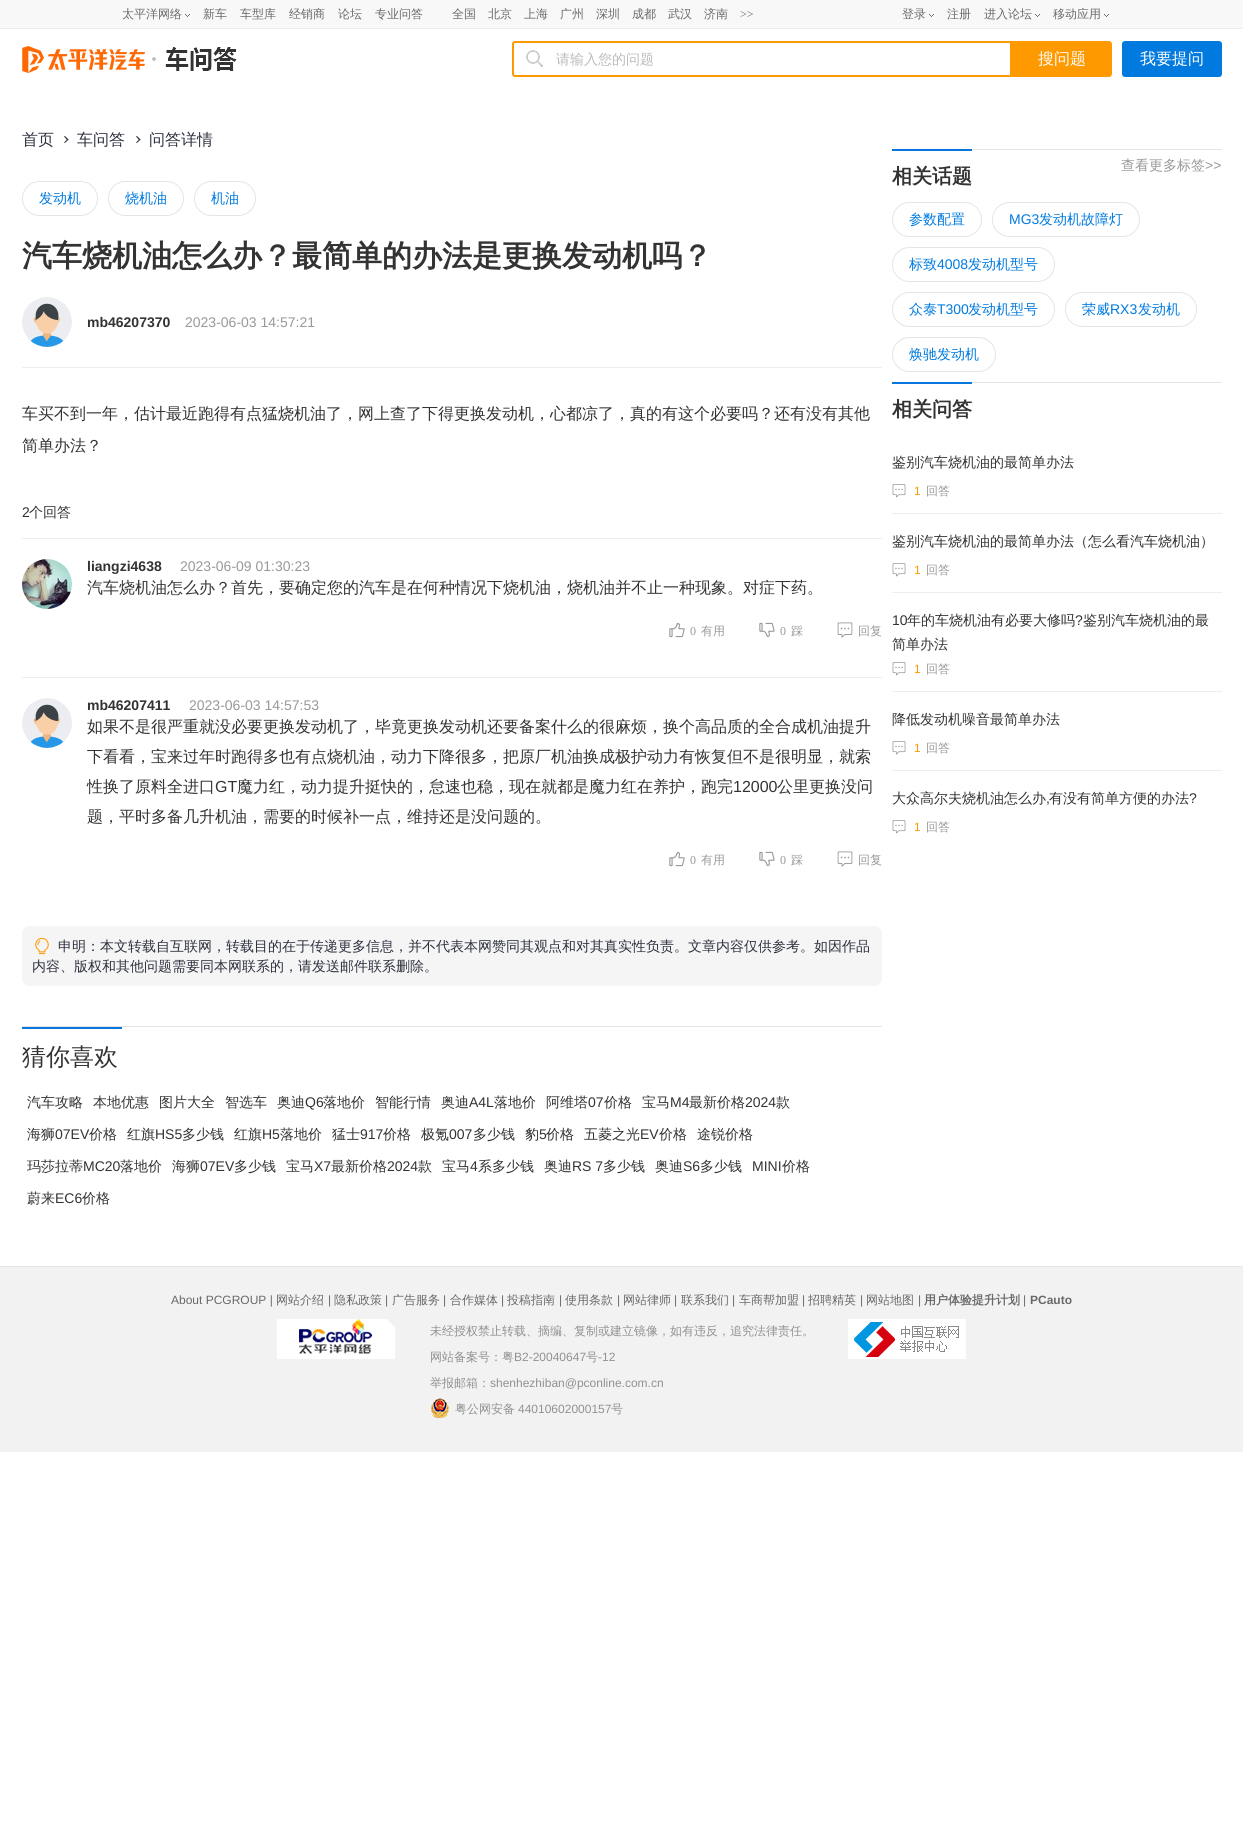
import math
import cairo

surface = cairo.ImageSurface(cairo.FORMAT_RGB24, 1243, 1834)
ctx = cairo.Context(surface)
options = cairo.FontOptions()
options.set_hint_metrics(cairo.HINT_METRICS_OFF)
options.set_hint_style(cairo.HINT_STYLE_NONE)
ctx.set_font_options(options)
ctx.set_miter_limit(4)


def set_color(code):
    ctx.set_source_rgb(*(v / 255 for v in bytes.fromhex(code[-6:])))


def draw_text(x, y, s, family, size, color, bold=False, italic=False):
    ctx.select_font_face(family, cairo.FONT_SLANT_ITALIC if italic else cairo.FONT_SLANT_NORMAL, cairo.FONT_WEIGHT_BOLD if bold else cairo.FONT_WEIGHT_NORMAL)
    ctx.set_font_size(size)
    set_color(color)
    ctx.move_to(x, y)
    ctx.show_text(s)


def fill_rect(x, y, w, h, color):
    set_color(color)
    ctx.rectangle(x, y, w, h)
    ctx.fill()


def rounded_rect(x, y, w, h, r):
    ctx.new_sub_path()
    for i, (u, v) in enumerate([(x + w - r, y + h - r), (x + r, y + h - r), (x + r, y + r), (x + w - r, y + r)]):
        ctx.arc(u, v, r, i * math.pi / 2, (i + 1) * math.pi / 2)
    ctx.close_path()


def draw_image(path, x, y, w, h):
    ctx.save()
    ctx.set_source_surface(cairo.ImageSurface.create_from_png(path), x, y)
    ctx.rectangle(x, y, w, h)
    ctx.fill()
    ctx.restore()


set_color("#ffffff")
ctx.paint()
fill_rect(0, 0, 1243, 28, "#f8f8f8")
fill_rect(0, 28, 1243, 1, "#ececec")
draw_text(122, 18, "太平洋网络", "WenQuanYi Zen Hei Medium", 12, "#696969")
draw_image("assets/img1.png", 185, 14, 5, 3)
draw_text(203, 18, "新车", "WenQuanYi Zen Hei Medium", 12, "#696969")
draw_text(240, 18, "车型库", "WenQuanYi Zen Hei Medium", 12, "#696969")
draw_text(289, 18, "经销商", "WenQuanYi Zen Hei Medium", 12, "#696969")
draw_text(338, 18, "论坛", "WenQuanYi Zen Hei Medium", 12, "#696969")
draw_text(375, 18, "专业问答", "WenQuanYi Zen Hei Medium", 12, "#696969")
draw_text(452, 18, "全国", "WenQuanYi Zen Hei Medium", 12, "#696969")
draw_text(488, 18, "北京", "WenQuanYi Zen Hei Medium", 12, "#696969")
draw_text(524, 18, "上海", "WenQuanYi Zen Hei Medium", 12, "#696969")
draw_text(560, 18, "广州", "WenQuanYi Zen Hei Medium", 12, "#696969")
draw_text(596, 18, "深圳", "WenQuanYi Zen Hei Medium", 12, "#696969")
draw_text(632, 18, "成都", "WenQuanYi Zen Hei Medium", 12, "#696969")
draw_text(668, 18, "武汉", "WenQuanYi Zen Hei Medium", 12, "#696969")
draw_text(704, 18, "济南", "WenQuanYi Zen Hei Medium", 12, "#696969")
draw_text(740, 18, ">>", "Liberation Serif", 12, "#696969")
draw_text(902, 18, "登录", "WenQuanYi Zen Hei Medium", 12, "#696969")
draw_image("assets/img1.png", 929, 14, 5, 3)
draw_text(947, 18, "注册", "WenQuanYi Zen Hei Medium", 12, "#696969")
draw_text(984, 18, "进入论坛", "WenQuanYi Zen Hei Medium", 12, "#696969")
draw_image("assets/img1.png", 1035, 14, 5, 3)
draw_text(1053, 18, "移动应用", "WenQuanYi Zen Hei Medium", 12, "#696969")
draw_image("assets/img1.png", 1104, 14, 5, 3)
draw_image("assets/img2.png", 22, 46, 215, 27)
ctx.new_path()
ctx.move_to(515, 42)
ctx.line_to(1011, 42)
ctx.line_to(1011, 76)
ctx.line_to(515, 76)
ctx.curve_to(514, 76, 513, 75, 513, 74)
ctx.line_to(513, 44)
ctx.curve_to(513, 43, 514, 42, 515, 42)
ctx.close_path()
set_color("#ff9900")
ctx.stroke()
draw_image("assets/img3.png", 526, 50, 17, 17)
draw_text(556, 64, "请输入您的问题", "WenQuanYi Zen Hei Medium", 14, "#bbbbbb")
set_color("#ff9900")
ctx.new_path()
ctx.move_to(1012, 41)
ctx.line_to(1109, 41)
ctx.curve_to(1110.5, 41, 1112, 42.5, 1112, 44)
ctx.line_to(1112, 74)
ctx.curve_to(1112, 75.5, 1110.5, 77, 1109, 77)
ctx.line_to(1012, 77)
ctx.close_path()
ctx.fill()
draw_text(1038, 64, "搜问题", "WenQuanYi Zen Hei Medium", 16, "#ffffff")
set_color("#007adf")
rounded_rect(1122, 41, 100, 36, 3)
ctx.fill()
draw_text(1140, 64, "我要提问", "WenQuanYi Zen Hei Medium", 16, "#ffffff")
draw_text(22, 145, "首页", "WenQuanYi Zen Hei Medium", 16, "#2d313e")
ctx.new_path()
ctx.move_to(65, 136)
ctx.line_to(68.5, 139.5)
ctx.line_to(67.5, 140.5)
ctx.line_to(64, 136.5)
ctx.close_path()
ctx.fill()
ctx.new_path()
ctx.move_to(67.5, 139)
ctx.line_to(68.5, 139.5)
ctx.line_to(65, 143)
ctx.line_to(64, 142.5)
ctx.close_path()
ctx.fill()
draw_text(77, 145, "车问答", "WenQuanYi Zen Hei Medium", 16, "#2d313e")
ctx.new_path()
ctx.move_to(137, 136)
ctx.line_to(140.5, 139.5)
ctx.line_to(139.5, 140.5)
ctx.line_to(136, 136.5)
ctx.close_path()
ctx.fill()
ctx.new_path()
ctx.move_to(139.5, 139)
ctx.line_to(140.5, 139.5)
ctx.line_to(137, 143)
ctx.line_to(136, 142.5)
ctx.close_path()
ctx.fill()
draw_text(149, 145, "问答详情", "WenQuanYi Zen Hei Medium", 16, "#2d313e")
rounded_rect(22.5, 181.5, 75, 34, 17)
set_color("#e5e5e5")
ctx.set_line_width(1)
ctx.stroke()
draw_text(39, 203, "发动机", "WenQuanYi Zen Hei Medium", 14, "#007adf")
rounded_rect(108.5, 181.5, 75, 34, 17)
set_color("#e5e5e5")
ctx.stroke()
draw_text(125, 203, "烧机油", "WenQuanYi Zen Hei Medium", 14, "#007adf")
rounded_rect(194.5, 181.5, 61, 34, 17)
set_color("#e5e5e5")
ctx.stroke()
draw_text(211, 203, "机油", "WenQuanYi Zen Hei Medium", 14, "#007adf")
draw_text(22, 266, "汽车烧机油怎么办？最简单的办法是更换发动机吗？", "WenQuanYi Zen Hei", 30, "#333333", bold=True)
fill_rect(22, 367, 860, 1, "#eeeeee")
draw_image("assets/img4.png", 22, 297, 50, 50)
draw_text(87, 327, "mb46207370", "Liberation Sans", 14, "#333333", bold=True)
draw_text(185, 327, "2023-06-03 14:57:21", "Liberation Sans", 14, "#999999")
draw_text(22, 419, "车买不到一年，估计最近跑得有点猛烧机油了，网上查了下得更换发动机，心都凉了，真的有这个必要吗？还有没有其他", "WenQuanYi Zen Hei Medium", 16, "#333333")
draw_text(22, 451, "简单办法？", "WenQuanYi Zen Hei Medium", 16, "#333333")
draw_text(22, 517, "2", "Liberation Sans", 14, "#333333")
draw_text(29, 517, "个回答", "WenQuanYi Zen Hei Medium", 14, "#333333")
fill_rect(22, 538, 860, 1, "#eeeeee")
draw_image("assets/img5.png", 22, 559, 50, 50)
draw_text(87, 571, "liangzi4638", "Liberation Sans", 14, "#333333", bold=True)
draw_text(180, 571, "2023-06-09 01:30:23", "Liberation Sans", 14, "#999999")
draw_text(87, 593, "汽车烧机油怎么办？首先，要确定您的汽车是在何种情况下烧机油，烧机油并不止一种现象。对症下药。", "WenQuanYi Zen Hei Medium", 16, "#333333")
draw_image("assets/img6.png", 669, 622, 16, 16)
draw_text(690, 635, "0", "Liberation Serif", 12, "#999999")
draw_text(701, 635, "有用", "WenQuanYi Zen Hei Medium", 12, "#999999")
draw_image("assets/img7.png", 759, 622, 16, 15)
draw_text(780, 635, "0", "Liberation Serif", 12, "#999999")
draw_text(791, 635, "踩", "WenQuanYi Zen Hei Medium", 12, "#999999")
draw_image("assets/img8.png", 837, 622, 16, 16)
draw_text(858, 635, "回复", "WenQuanYi Zen Hei Medium", 12, "#999999")
fill_rect(22, 677, 860, 1, "#eeeeee")
draw_image("assets/img4.png", 22, 698, 50, 50)
draw_text(87, 710, "mb46207411", "Liberation Sans", 14, "#333333", bold=True)
draw_text(189, 710, "2023-06-03 14:57:53", "Liberation Sans", 14, "#999999")
draw_text(87, 732, "如果不是很严重就没必要更换发动机了，毕竟更换发动机还要备案什么的很麻烦，换个高品质的全合成机油提升", "WenQuanYi Zen Hei Medium", 16, "#333333")
draw_text(87, 762, "下看看，宝来过年时跑得多也有点烧机油，动力下降很多，把原厂机油换成极护动力有恢复但不是很明显，就索", "WenQuanYi Zen Hei Medium", 16, "#333333")
draw_text(87, 792, "性换了原料全进口", "WenQuanYi Zen Hei Medium", 16, "#333333")
draw_text(215, 792, "GT", "Liberation Sans", 16, "#333333")
draw_text(237, 792, "魔力红，动力提升挺快的，怠速也稳，现在就都是魔力红在养护，跑完", "WenQuanYi Zen Hei Medium", 16, "#333333")
draw_text(733, 792, "12000", "Liberation Sans", 16, "#333333")
draw_text(777, 792, "公里更换没问", "WenQuanYi Zen Hei Medium", 16, "#333333")
draw_text(87, 822, "题，平时多备几升机油，需要的时候补一点，维持还是没问题的。", "WenQuanYi Zen Hei Medium", 16, "#333333")
draw_image("assets/img6.png", 669, 851, 16, 16)
draw_text(690, 864, "0", "Liberation Serif", 12, "#999999")
draw_text(701, 864, "有用", "WenQuanYi Zen Hei Medium", 12, "#999999")
draw_image("assets/img7.png", 759, 851, 16, 15)
draw_text(780, 864, "0", "Liberation Serif", 12, "#999999")
draw_text(791, 864, "踩", "WenQuanYi Zen Hei Medium", 12, "#999999")
draw_image("assets/img8.png", 837, 851, 16, 16)
draw_text(858, 864, "回复", "WenQuanYi Zen Hei Medium", 12, "#999999")
set_color("#f5f5f5")
rounded_rect(22, 926, 860, 60, 8)
ctx.fill()
draw_image("assets/img9.png", 35, 937, 14, 18)
draw_text(58, 951, "申明：本文转载自互联网，转载目的在于传递更多信息，并不代表本网赞同其观点和对其真实性负责。文章内容仅供参考。如因作品", "WenQuanYi Zen Hei Medium", 14, "#2d313e")
draw_text(32, 971, "内容、版权和其他问题需要同本网联系的，请发送邮件联系删除。", "WenQuanYi Zen Hei Medium", 14, "#2d313e")
fill_rect(22, 1026, 860, 1, "#e5e5e5")
fill_rect(22, 1027, 100, 2, "#0777dd")
draw_text(22, 1065, "猜你喜欢", "WenQuanYi Zen Hei Medium", 24, "#333333")
draw_text(27, 1107, "汽车攻略", "WenQuanYi Zen Hei Medium", 14, "#333333")
draw_text(93, 1107, "本地优惠", "WenQuanYi Zen Hei Medium", 14, "#333333")
draw_text(159, 1107, "图片大全", "WenQuanYi Zen Hei Medium", 14, "#333333")
draw_text(225, 1107, "智选车", "WenQuanYi Zen Hei Medium", 14, "#333333")
draw_text(277, 1107, "奥迪", "WenQuanYi Zen Hei Medium", 14, "#333333")
draw_text(305, 1107, "Q6", "Liberation Sans", 14, "#333333")
draw_text(323, 1107, "落地价", "WenQuanYi Zen Hei Medium", 14, "#333333")
draw_text(375, 1107, "智能行情", "WenQuanYi Zen Hei Medium", 14, "#333333")
draw_text(441, 1107, "奥迪", "WenQuanYi Zen Hei Medium", 14, "#333333")
draw_text(469, 1107, "A4L", "Liberation Sans", 14, "#333333")
draw_text(494, 1107, "落地价", "WenQuanYi Zen Hei Medium", 14, "#333333")
draw_text(546, 1107, "阿维塔", "WenQuanYi Zen Hei Medium", 14, "#333333")
draw_text(588, 1107, "07", "Liberation Sans", 14, "#333333")
draw_text(604, 1107, "价格", "WenQuanYi Zen Hei Medium", 14, "#333333")
draw_text(642, 1107, "宝马", "WenQuanYi Zen Hei Medium", 14, "#333333")
draw_text(670, 1107, "M4", "Liberation Sans", 14, "#333333")
draw_text(689, 1107, "最新价格", "WenQuanYi Zen Hei Medium", 14, "#333333")
draw_text(745, 1107, "2024", "Liberation Sans", 14, "#333333")
draw_text(776, 1107, "款", "WenQuanYi Zen Hei Medium", 14, "#333333")
draw_text(27, 1139, "海狮", "WenQuanYi Zen Hei Medium", 14, "#333333")
draw_text(55, 1139, "07EV", "Liberation Sans", 14, "#333333")
draw_text(89, 1139, "价格", "WenQuanYi Zen Hei Medium", 14, "#333333")
draw_text(127, 1139, "红旗", "WenQuanYi Zen Hei Medium", 14, "#333333")
draw_text(155, 1139, "HS5", "Liberation Sans", 14, "#333333")
draw_text(182, 1139, "多少钱", "WenQuanYi Zen Hei Medium", 14, "#333333")
draw_text(234, 1139, "红旗", "WenQuanYi Zen Hei Medium", 14, "#333333")
draw_text(262, 1139, "H5", "Liberation Sans", 14, "#333333")
draw_text(280, 1139, "落地价", "WenQuanYi Zen Hei Medium", 14, "#333333")
draw_text(332, 1139, "猛士", "WenQuanYi Zen Hei Medium", 14, "#333333")
draw_text(360, 1139, "917", "Liberation Sans", 14, "#333333")
draw_text(383, 1139, "价格", "WenQuanYi Zen Hei Medium", 14, "#333333")
draw_text(421, 1139, "极氪", "WenQuanYi Zen Hei Medium", 14, "#333333")
draw_text(449, 1139, "007", "Liberation Sans", 14, "#333333")
draw_text(473, 1139, "多少钱", "WenQuanYi Zen Hei Medium", 14, "#333333")
draw_text(525, 1139, "豹", "WenQuanYi Zen Hei Medium", 14, "#333333")
draw_text(539, 1139, "5", "Liberation Sans", 14, "#333333")
draw_text(546, 1139, "价格", "WenQuanYi Zen Hei Medium", 14, "#333333")
draw_text(584, 1139, "五菱之光", "WenQuanYi Zen Hei Medium", 14, "#333333")
draw_text(640, 1139, "EV", "Liberation Sans", 14, "#333333")
draw_text(659, 1139, "价格", "WenQuanYi Zen Hei Medium", 14, "#333333")
draw_text(697, 1139, "途锐价格", "WenQuanYi Zen Hei Medium", 14, "#333333")
draw_text(27, 1171, "玛莎拉蒂", "WenQuanYi Zen Hei Medium", 14, "#333333")
draw_text(83, 1171, "MC20", "Liberation Sans", 14, "#333333")
draw_text(120, 1171, "落地价", "WenQuanYi Zen Hei Medium", 14, "#333333")
draw_text(172, 1171, "海狮", "WenQuanYi Zen Hei Medium", 14, "#333333")
draw_text(200, 1171, "07EV", "Liberation Sans", 14, "#333333")
draw_text(234, 1171, "多少钱", "WenQuanYi Zen Hei Medium", 14, "#333333")
draw_text(286, 1171, "宝马", "WenQuanYi Zen Hei Medium", 14, "#333333")
draw_text(314, 1171, "X7", "Liberation Sans", 14, "#333333")
draw_text(331, 1171, "最新价格", "WenQuanYi Zen Hei Medium", 14, "#333333")
draw_text(387, 1171, "2024", "Liberation Sans", 14, "#333333")
draw_text(418, 1171, "款", "WenQuanYi Zen Hei Medium", 14, "#333333")
draw_text(442, 1171, "宝马", "WenQuanYi Zen Hei Medium", 14, "#333333")
draw_text(470, 1171, "4", "Liberation Sans", 14, "#333333")
draw_text(478, 1171, "系多少钱", "WenQuanYi Zen Hei Medium", 14, "#333333")
draw_text(544, 1171, "奥迪", "WenQuanYi Zen Hei Medium", 14, "#333333")
draw_text(572, 1171, "RS 7", "Liberation Sans", 14, "#333333")
draw_text(603, 1171, "多少钱", "WenQuanYi Zen Hei Medium", 14, "#333333")
draw_text(655, 1171, "奥迪", "WenQuanYi Zen Hei Medium", 14, "#333333")
draw_text(683, 1171, "S6", "Liberation Sans", 14, "#333333")
draw_text(700, 1171, "多少钱", "WenQuanYi Zen Hei Medium", 14, "#333333")
draw_text(752, 1171, "MINI", "Liberation Sans", 14, "#333333")
draw_text(782, 1171, "价格", "WenQuanYi Zen Hei Medium", 14, "#333333")
draw_text(27, 1203, "蔚来", "WenQuanYi Zen Hei Medium", 14, "#333333")
draw_text(55, 1203, "EC6", "Liberation Sans", 14, "#333333")
draw_text(82, 1203, "价格", "WenQuanYi Zen Hei Medium", 14, "#333333")
fill_rect(972, 149, 250, 1, "#e5e5e5")
fill_rect(892, 149, 80, 2, "#0777dd")
draw_text(892, 183, "相关话题", "WenQuanYi Zen Hei", 20, "#333333", bold=True)
draw_text(1121, 170, "查看更多标签", "WenQuanYi Zen Hei Medium", 14, "#999999")
draw_text(1205, 170, ">>", "Liberation Sans", 14, "#999999")
rounded_rect(892.5, 202.5, 89, 34, 17)
set_color("#e5e5e5")
ctx.stroke()
draw_text(909, 224, "参数配置", "WenQuanYi Zen Hei Medium", 14, "#007adf")
rounded_rect(992.5, 202.5, 147, 34, 17)
set_color("#e5e5e5")
ctx.stroke()
draw_text(1009, 224, "MG3", "Liberation Sans", 14, "#007adf")
draw_text(1039, 224, "发动机故障灯", "WenQuanYi Zen Hei Medium", 14, "#007adf")
rounded_rect(892.5, 247.5, 162, 34, 17)
set_color("#e5e5e5")
ctx.stroke()
draw_text(909, 269, "标致", "WenQuanYi Zen Hei Medium", 14, "#007adf")
draw_text(937, 269, "4008", "Liberation Sans", 14, "#007adf")
draw_text(968, 269, "发动机型号", "WenQuanYi Zen Hei Medium", 14, "#007adf")
rounded_rect(892.5, 292.5, 162, 34, 17)
set_color("#e5e5e5")
ctx.stroke()
draw_text(909, 314, "众泰", "WenQuanYi Zen Hei Medium", 14, "#007adf")
draw_text(937, 314, "T300", "Liberation Sans", 14, "#007adf")
draw_text(968, 314, "发动机型号", "WenQuanYi Zen Hei Medium", 14, "#007adf")
rounded_rect(1065.5, 292.5, 131, 34, 17)
set_color("#e5e5e5")
ctx.stroke()
draw_text(1082, 314, "荣威", "WenQuanYi Zen Hei Medium", 14, "#007adf")
draw_text(1110, 314, "RX3", "Liberation Sans", 14, "#007adf")
draw_text(1138, 314, "发动机", "WenQuanYi Zen Hei Medium", 14, "#007adf")
rounded_rect(892.5, 337.5, 103, 34, 17)
set_color("#e5e5e5")
ctx.stroke()
draw_text(909, 359, "焕驰发动机", "WenQuanYi Zen Hei Medium", 14, "#007adf")
fill_rect(972, 382, 250, 1, "#e5e5e5")
fill_rect(892, 382, 80, 2, "#0777dd")
draw_text(892, 416, "相关问答", "WenQuanYi Zen Hei", 20, "#333333", bold=True)
draw_text(892, 467, "鉴别汽车烧机油的最简单办法", "WenQuanYi Zen Hei Medium", 14, "#333333")
draw_image("assets/img10.png", 892, 484, 14, 14)
draw_text(914, 495, "1", "Liberation Sans", 12, "#ff9900")
draw_text(926, 495, "回答", "WenQuanYi Zen Hei Medium", 12, "#999999")
fill_rect(892, 513, 330, 1, "#eeeeee")
draw_text(892, 546, "鉴别汽车烧机油的最简单办法（怎么看汽车烧机油）", "WenQuanYi Zen Hei Medium", 14, "#333333")
draw_image("assets/img10.png", 892, 563, 14, 14)
draw_text(914, 574, "1", "Liberation Sans", 12, "#ff9900")
draw_text(926, 574, "回答", "WenQuanYi Zen Hei Medium", 12, "#999999")
fill_rect(892, 592, 330, 1, "#eeeeee")
draw_text(892, 625, "10", "Liberation Sans", 14, "#333333")
draw_text(907, 625, "年的车烧机油有必要大修吗", "WenQuanYi Zen Hei Medium", 14, "#333333")
draw_text(1075, 625, "?", "Liberation Sans", 14, "#333333")
draw_text(1083, 625, "鉴别汽车烧机油的最", "WenQuanYi Zen Hei Medium", 14, "#333333")
draw_text(892, 649, "简单办法", "WenQuanYi Zen Hei Medium", 14, "#333333")
draw_image("assets/img10.png", 892, 662, 14, 14)
draw_text(914, 673, "1", "Liberation Sans", 12, "#ff9900")
draw_text(926, 673, "回答", "WenQuanYi Zen Hei Medium", 12, "#999999")
fill_rect(892, 691, 330, 1, "#eeeeee")
draw_text(892, 724, "降低发动机噪音最简单办法", "WenQuanYi Zen Hei Medium", 14, "#333333")
draw_image("assets/img10.png", 892, 741, 14, 14)
draw_text(914, 752, "1", "Liberation Sans", 12, "#ff9900")
draw_text(926, 752, "回答", "WenQuanYi Zen Hei Medium", 12, "#999999")
fill_rect(892, 770, 330, 1, "#eeeeee")
draw_text(892, 803, "大众高尔夫烧机油怎么办", "WenQuanYi Zen Hei Medium", 14, "#333333")
draw_text(1046, 803, ",", "Liberation Sans", 14, "#333333")
draw_text(1049, 803, "有没有简单方便的办法", "WenQuanYi Zen Hei Medium", 14, "#333333")
draw_text(1189, 803, "?", "Liberation Sans", 14, "#333333")
draw_image("assets/img10.png", 892, 820, 14, 14)
draw_text(914, 831, "1", "Liberation Sans", 12, "#ff9900")
draw_text(926, 831, "回答", "WenQuanYi Zen Hei Medium", 12, "#999999")
fill_rect(0, 1267, 1243, 185, "#f2f2f2")
fill_rect(0, 1266, 1243, 1, "#e6e6e6")
draw_text(171, 1304, "About PCGROUP |", "Liberation Sans", 12, "#696969")
draw_text(276, 1304, "网站介绍", "WenQuanYi Zen Hei Medium", 12, "#696969")
draw_text(328, 1304, "|", "Liberation Sans", 12, "#696969")
draw_text(334, 1304, "隐私政策", "WenQuanYi Zen Hei Medium", 12, "#696969")
draw_text(385, 1304, "|", "Liberation Sans", 12, "#696969")
draw_text(392, 1304, "广告服务", "WenQuanYi Zen Hei Medium", 12, "#696969")
draw_text(443, 1304, "|", "Liberation Sans", 12, "#696969")
draw_text(450, 1304, "合作媒体", "WenQuanYi Zen Hei Medium", 12, "#696969")
draw_text(501, 1304, "|", "Liberation Sans", 12, "#696969")
draw_text(507, 1304, "投稿指南", "WenQuanYi Zen Hei Medium", 12, "#696969")
draw_text(559, 1304, "|", "Liberation Sans", 12, "#696969")
draw_text(565, 1304, "使用条款", "WenQuanYi Zen Hei Medium", 12, "#696969")
draw_text(617, 1304, "|", "Liberation Sans", 12, "#696969")
draw_text(623, 1304, "网站律师", "WenQuanYi Zen Hei Medium", 12, "#696969")
draw_text(674, 1304, "|", "Liberation Sans", 12, "#696969")
draw_text(681, 1304, "联系我们", "WenQuanYi Zen Hei Medium", 12, "#696969")
draw_text(732, 1304, "|", "Liberation Sans", 12, "#696969")
draw_text(739, 1304, "车商帮加盟", "WenQuanYi Zen Hei Medium", 12, "#696969")
draw_text(802, 1304, "|", "Liberation Sans", 12, "#696969")
draw_text(808, 1304, "招聘精英", "WenQuanYi Zen Hei Medium", 12, "#696969")
draw_text(860, 1304, "|", "Liberation Sans", 12, "#696969")
draw_text(866, 1304, "网站地图", "WenQuanYi Zen Hei Medium", 12, "#696969")
draw_text(918, 1304, "|", "Liberation Sans", 12, "#696969")
draw_text(924, 1304, "用户体验提升计划", "WenQuanYi Zen Hei", 12, "#696969", bold=True)
draw_text(1023, 1304, "|", "Liberation Sans", 12, "#696969")
draw_text(1030, 1304, "PCauto", "Liberation Sans", 12, "#696969", bold=True)
draw_image("assets/img11.png", 277, 1319, 118, 40)
draw_text(430, 1335, "未经授权禁止转载、摘编、复制或建立镜像，如有违反，追究法律责任。", "WenQuanYi Zen Hei Medium", 12, "#919191")
draw_text(430, 1361, "网站备案号：粤", "WenQuanYi Zen Hei Medium", 12, "#919191")
draw_text(514, 1361, "B2-20040647", "Liberation Sans", 12, "#919191")
draw_text(586, 1361, "号", "WenQuanYi Zen Hei Medium", 12, "#919191")
draw_text(598, 1361, "-12", "Liberation Sans", 12, "#919191")
draw_text(430, 1387, "举报邮箱：", "WenQuanYi Zen Hei Medium", 12, "#919191")
draw_text(490, 1387, "shenhezhiban@pconline.com.cn", "Liberation Sans", 12, "#919191")
draw_image("assets/img12.png", 431, 1398, 18, 20)
draw_text(455, 1413, "粤公网安备", "WenQuanYi Zen Hei Medium", 12, "#919191")
draw_text(518, 1413, "44010602000157", "Liberation Sans", 12, "#919191")
draw_text(611, 1413, "号", "WenQuanYi Zen Hei Medium", 12, "#919191")
draw_image("assets/img13.png", 848, 1319, 118, 40)
surface.write_to_png("output.png")
